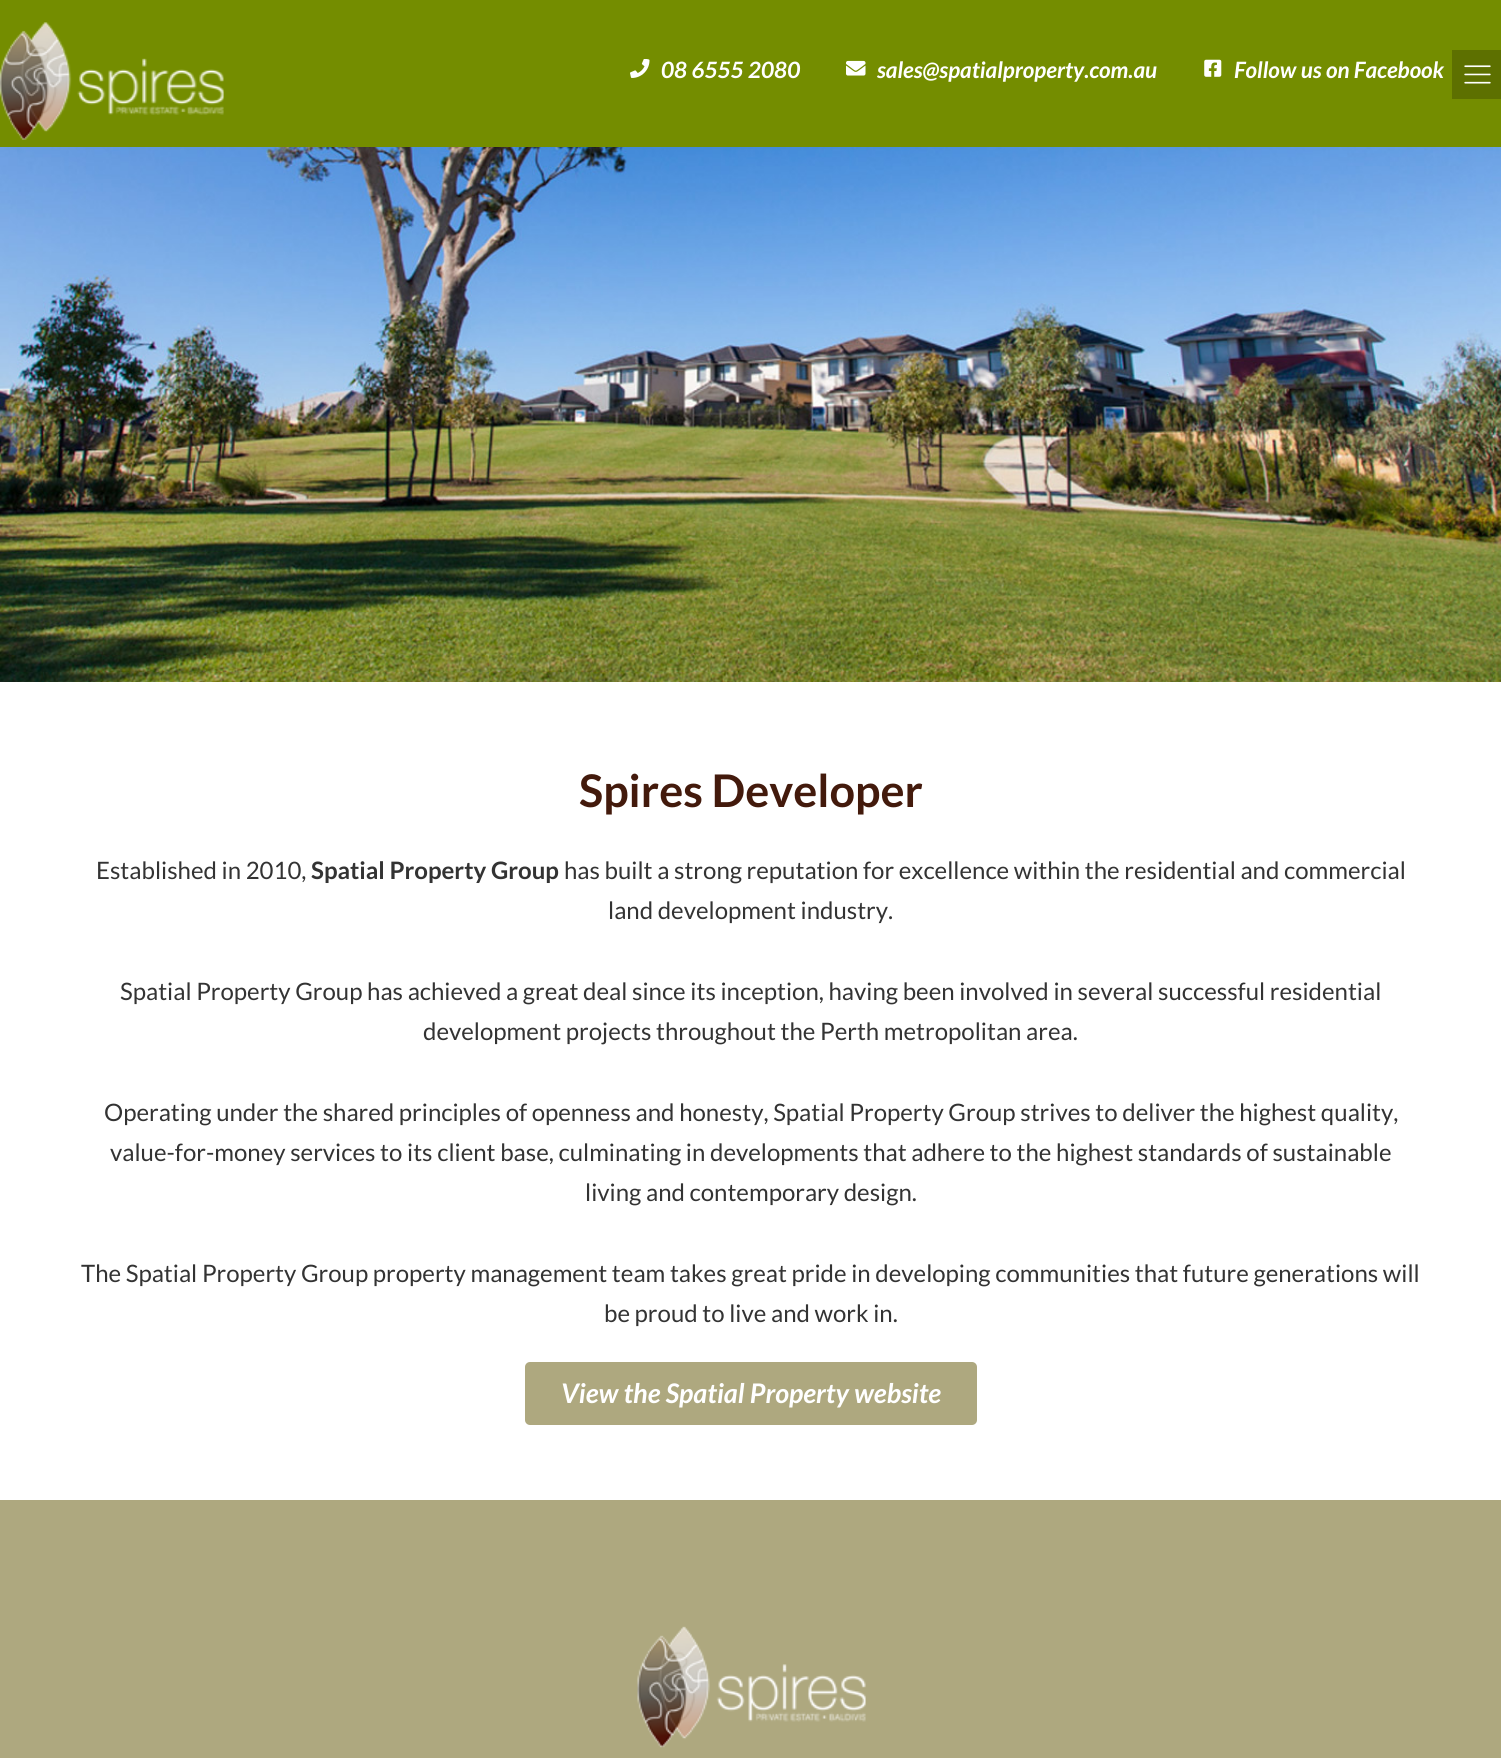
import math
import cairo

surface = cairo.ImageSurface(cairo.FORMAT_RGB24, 1501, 1758)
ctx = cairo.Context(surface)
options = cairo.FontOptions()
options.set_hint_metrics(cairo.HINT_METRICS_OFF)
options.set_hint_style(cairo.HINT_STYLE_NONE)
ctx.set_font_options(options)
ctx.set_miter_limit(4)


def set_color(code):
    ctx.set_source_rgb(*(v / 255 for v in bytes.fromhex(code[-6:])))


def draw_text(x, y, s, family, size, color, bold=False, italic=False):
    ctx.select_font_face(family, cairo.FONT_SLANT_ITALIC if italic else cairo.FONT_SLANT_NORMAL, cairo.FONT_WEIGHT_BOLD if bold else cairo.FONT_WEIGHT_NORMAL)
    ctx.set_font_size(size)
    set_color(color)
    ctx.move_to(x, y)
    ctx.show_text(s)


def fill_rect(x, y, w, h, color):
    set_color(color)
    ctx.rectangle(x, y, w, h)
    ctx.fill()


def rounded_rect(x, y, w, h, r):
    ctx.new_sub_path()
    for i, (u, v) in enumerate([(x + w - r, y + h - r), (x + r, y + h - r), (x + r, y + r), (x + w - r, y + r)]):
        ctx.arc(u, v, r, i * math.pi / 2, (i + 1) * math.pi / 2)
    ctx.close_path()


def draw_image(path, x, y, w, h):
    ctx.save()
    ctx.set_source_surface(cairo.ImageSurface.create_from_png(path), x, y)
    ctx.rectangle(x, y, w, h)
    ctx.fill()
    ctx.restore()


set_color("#ffffff")
ctx.paint()
fill_rect(0, 0, 1501, 147, "#748d00")
draw_image("assets/img1.png", 0, 22, 224, 118)
draw_image("assets/img2.png", 630, 59, 20, 19)
draw_text(661, 78, "08 6555 2080", "Lato", 22.5, "#ffffff", bold=True, italic=True)
draw_image("assets/img3.png", 846, 60, 20, 16)
draw_text(877, 78, "sales@spatialproperty.com.au", "Lato", 22.5, "#ffffff", bold=True, italic=True)
draw_image("assets/img4.png", 1204, 59, 18, 18)
draw_text(1234, 78, "Follow us on Facebook", "Lato", 22.5, "#ffffff", bold=True, italic=True)
fill_rect(1452, 50, 49, 49, "#5d7000")
draw_image("assets/img5.png", 1464, 65, 27, 19)
draw_image("assets/img6.png", 0, 147, 1501, 535)
draw_text(579, 807, "Spires Developer", "Lato", 45, "#431a0c", bold=True)
draw_text(96, 879, "Established in 2010,", "Lato", 24, "#333333")
draw_text(311, 879, "Spatial Property Group", "Lato", 24, "#333333", bold=True)
draw_text(564, 879, "has built a strong reputation for excellence within the residential and commercial", "Lato", 24, "#333333")
draw_text(608, 919, "land development industry.", "Lato", 24, "#333333")
draw_text(120, 1000, "Spatial Property Group has achieved a great deal since its inception, having been involved in several successful residential", "Lato", 24, "#333333")
draw_text(423, 1040, "development projects throughout the Perth metropolitan area.", "Lato", 24, "#333333")
draw_text(104, 1121, "Operating under the shared principles of openness and honesty, Spatial Property Group strives to deliver the highest quality,", "Lato", 24, "#333333")
draw_text(110, 1161, "value-for-money services to its client base, culminating in developments that adhere to the highest standards of sustainable", "Lato", 24, "#333333")
draw_text(585, 1201, "living and contemporary design.", "Lato", 24, "#333333")
draw_text(81, 1282, "The Spatial Property Group property management team takes great pride in developing communities that future generations will", "Lato", 24, "#333333")
draw_text(604, 1322, "be proud to live and work in.", "Lato", 24, "#333333")
set_color("#aea87f")
rounded_rect(525, 1362, 452, 63, 5)
ctx.fill()
draw_text(561, 1403, "View the Spatial Property website", "Lato", 27, "#ffffff", bold=True, italic=True)
fill_rect(0, 1500, 1501, 258, "#aea87f")
draw_image("assets/img7.png", 637, 1626, 229, 122)
surface.write_to_png("output.png")
